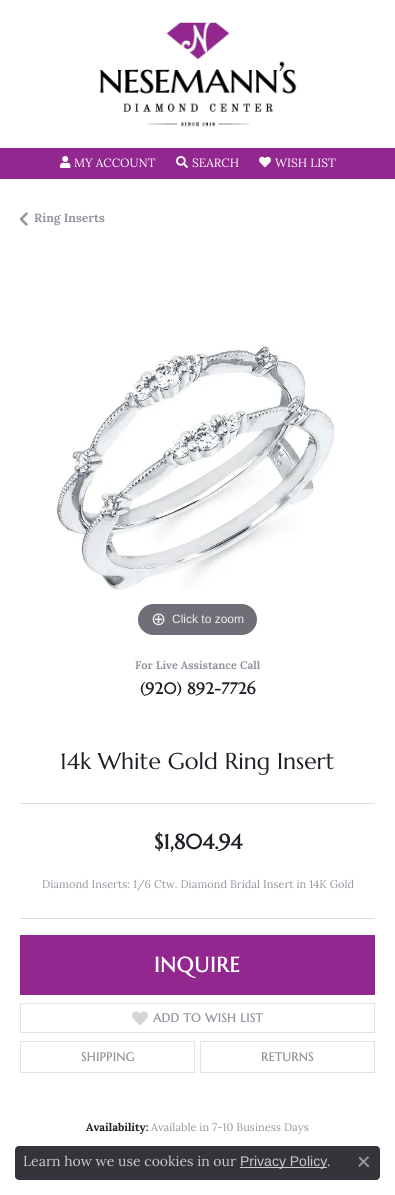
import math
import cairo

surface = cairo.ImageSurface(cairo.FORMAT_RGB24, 395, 1195)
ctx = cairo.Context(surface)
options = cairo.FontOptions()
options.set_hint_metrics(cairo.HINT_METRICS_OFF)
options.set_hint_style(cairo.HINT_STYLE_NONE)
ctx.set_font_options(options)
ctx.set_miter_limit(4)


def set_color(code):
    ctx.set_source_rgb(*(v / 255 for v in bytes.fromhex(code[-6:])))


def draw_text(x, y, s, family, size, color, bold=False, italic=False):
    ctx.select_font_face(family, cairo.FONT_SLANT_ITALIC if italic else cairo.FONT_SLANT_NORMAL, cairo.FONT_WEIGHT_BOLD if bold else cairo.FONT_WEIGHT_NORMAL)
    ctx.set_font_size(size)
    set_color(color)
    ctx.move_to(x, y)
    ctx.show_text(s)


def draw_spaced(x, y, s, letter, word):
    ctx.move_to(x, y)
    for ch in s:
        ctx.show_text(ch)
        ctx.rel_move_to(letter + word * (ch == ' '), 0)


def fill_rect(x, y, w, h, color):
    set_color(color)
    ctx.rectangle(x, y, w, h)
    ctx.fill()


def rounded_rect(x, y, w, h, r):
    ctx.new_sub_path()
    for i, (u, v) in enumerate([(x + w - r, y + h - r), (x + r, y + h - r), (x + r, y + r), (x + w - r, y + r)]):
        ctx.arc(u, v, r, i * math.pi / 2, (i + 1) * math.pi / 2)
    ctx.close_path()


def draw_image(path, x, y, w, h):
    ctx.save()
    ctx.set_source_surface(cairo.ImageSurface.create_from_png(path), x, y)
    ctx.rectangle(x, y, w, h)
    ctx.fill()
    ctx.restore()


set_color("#ffffff")
ctx.paint()
draw_image("assets/img1.png", 99, 22, 198, 105)
fill_rect(0, 148, 395, 31, "#92278f")
draw_image("assets/img2.png", 60, 156, 11, 12)
draw_text(74, 167, "MY ACCOUNT", "Lora", 12, "#ffffff")
draw_image("assets/img3.png", 176, 156, 12, 12)
draw_text(192, 167, "SEARCH", "Lora", 12, "#ffffff")
draw_image("assets/img4.png", 259, 156, 12, 12)
draw_text(275, 167, "WISH LIST", "Lora", 12, "#ffffff")
draw_image("assets/img5.png", 19, 212, 9, 14)
draw_text(34, 222, "Ring Inserts", "Lora", 12, "#93969f", bold=True)
draw_image("assets/img6.png", 56, 345, 279, 245)
set_color("#6f7077")
rounded_rect(138, 604, 119, 31, 15.5)
ctx.fill()
draw_text(151, 625, "⊕", "DejaVu Sans", 18, "#eeeeee")
draw_text(172, 623, "Click to zoom", "Liberation Sans", 12, "#eeeeee")
draw_text(135, 669, "For Live Assistance Call", "Lora", 11.05, "#93969f", bold=True)
ctx.select_font_face("Marcellus", cairo.FONT_SLANT_NORMAL, cairo.FONT_WEIGHT_BOLD)
ctx.set_font_size(16)
set_color("#201e26")
draw_spaced(140, 694, "(920) 892-7726", 0.4, 0)
draw_text(60, 769, "14k White Gold Ring Insert", "Marcellus", 22.9, "#201e26")
fill_rect(20, 803, 355, 1, "#dddcde")
draw_text(154, 849, "$1,804.94", "Marcellus", 21, "#201e26", bold=True)
draw_text(42, 888, "Diamond Inserts: 1/6 Ctw. Diamond Bridal Insert in 14K Gold", "Lora", 11.05, "#93969f")
fill_rect(20, 918, 355, 1, "#dddcde")
fill_rect(20, 935, 355, 60, "#92278f")
ctx.select_font_face("Marcellus", cairo.FONT_SLANT_NORMAL, cairo.FONT_WEIGHT_BOLD)
ctx.set_font_size(21)
set_color("#ffffff")
draw_spaced(154, 972, "INQUIRE", 0.75, 0)
ctx.rectangle(20.5, 1003.5, 354, 29)
set_color("#e2e1e4")
ctx.set_line_width(1)
ctx.stroke()
draw_image("assets/img7.png", 132, 1011, 16, 15)
ctx.set_font_size(12)
set_color("#93969f")
draw_spaced(153, 1022, "ADD TO WISH LIST", 0.4, 0)
ctx.rectangle(20.5, 1041.5, 174, 31)
set_color("#e2e1e4")
ctx.stroke()
set_color("#93969f")
draw_spaced(81, 1061, "SHIPPING", 0.4, 0)
ctx.rectangle(200.5, 1041.5, 174, 31)
set_color("#e2e1e4")
ctx.stroke()
set_color("#93969f")
draw_spaced(261, 1061, "RETURNS", 0.4, 0)
draw_text(86, 1131, "Availability:", "Lora", 11.05, "#201e26", bold=True)
draw_text(151, 1131, "Available in 7-10 Business Days", "Lora", 11.05, "#93969f")
ctx.set_source_rgba(0.125, 0.118, 0.149, 0.9)
rounded_rect(15, 1146, 365, 34, 4)
ctx.fill()
draw_text(23, 1166, "Learn how we use cookies in our", "Lora", 14, "#cccccc")
fill_rect(240, 1167, 87, 1, "#cccccc")
draw_text(240, 1166, "Privacy Policy", "Liberation Sans", 14, "#cccccc")
draw_text(327, 1166, ".", "Lora", 14, "#cccccc")
draw_image("assets/img8.png", 358, 1156, 12, 12)
surface.write_to_png("output.png")
